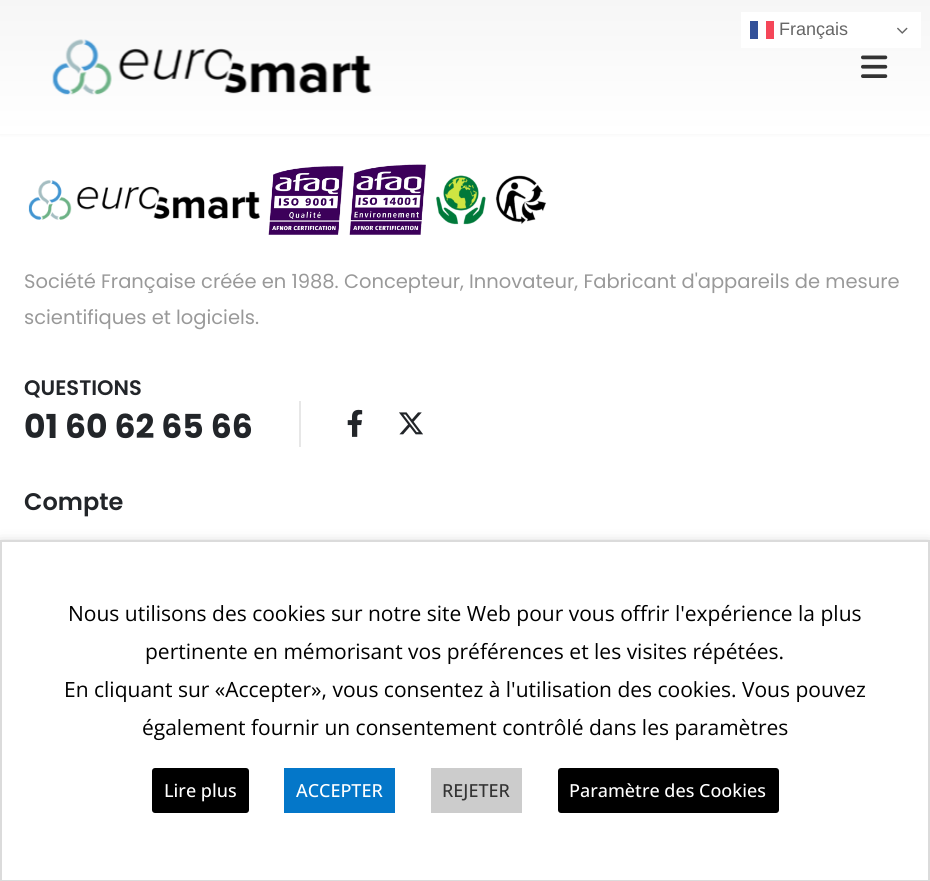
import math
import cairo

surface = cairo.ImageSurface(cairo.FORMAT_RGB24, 930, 881)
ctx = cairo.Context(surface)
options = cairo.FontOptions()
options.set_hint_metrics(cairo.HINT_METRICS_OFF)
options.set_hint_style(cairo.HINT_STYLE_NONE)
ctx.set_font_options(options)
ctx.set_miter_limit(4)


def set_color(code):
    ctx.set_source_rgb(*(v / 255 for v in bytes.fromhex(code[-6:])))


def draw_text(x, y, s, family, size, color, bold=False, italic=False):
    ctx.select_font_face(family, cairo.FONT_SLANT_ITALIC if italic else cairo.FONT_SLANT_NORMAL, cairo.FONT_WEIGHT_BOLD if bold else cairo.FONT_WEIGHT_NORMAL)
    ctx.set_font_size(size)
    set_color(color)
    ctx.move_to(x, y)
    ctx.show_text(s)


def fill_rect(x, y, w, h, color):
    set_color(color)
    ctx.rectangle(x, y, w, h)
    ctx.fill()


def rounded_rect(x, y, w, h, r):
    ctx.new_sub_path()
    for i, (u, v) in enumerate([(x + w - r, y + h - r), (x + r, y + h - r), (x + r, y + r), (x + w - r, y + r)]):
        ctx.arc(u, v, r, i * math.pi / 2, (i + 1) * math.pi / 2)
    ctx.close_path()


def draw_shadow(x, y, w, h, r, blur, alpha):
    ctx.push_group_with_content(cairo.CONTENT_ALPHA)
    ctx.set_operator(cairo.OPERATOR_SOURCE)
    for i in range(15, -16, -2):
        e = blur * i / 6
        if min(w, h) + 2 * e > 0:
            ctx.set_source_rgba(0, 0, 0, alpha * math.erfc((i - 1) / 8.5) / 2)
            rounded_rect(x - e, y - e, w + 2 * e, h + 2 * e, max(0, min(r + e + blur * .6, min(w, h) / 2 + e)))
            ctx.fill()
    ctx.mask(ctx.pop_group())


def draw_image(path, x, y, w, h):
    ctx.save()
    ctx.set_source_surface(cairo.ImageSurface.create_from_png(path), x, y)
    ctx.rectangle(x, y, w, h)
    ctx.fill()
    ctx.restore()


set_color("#ffffff")
ctx.paint()
set_color("#000000")
draw_shadow(0, 0, 930, 134, 0, 2, 0.06)
gradient = cairo.LinearGradient(465, 0, 465, 134)
gradient.add_color_stop_rgba(0, 0.965, 0.965, 0.965, 1)
gradient.add_color_stop_rgba(1, 1, 1, 1, 1)
ctx.set_source(gradient)
ctx.rectangle(0, 0, 930, 134)
ctx.fill()
fill_rect(741, 12, 180, 36, "#ffffff")
fill_rect(750, 21, 8, 18, "#335199")
fill_rect(766, 21, 8, 18, "#f54659")
draw_text(779, 35, "Français", "Liberation Sans", 18, "#666666")
draw_image("assets/img1.png", 897, 27, 11, 7)
draw_image("assets/img2.png", 52, 39, 320, 56)
draw_image("assets/img3.png", 861, 55, 27, 23)
draw_image("assets/img4.png", 28, 180, 232, 40)
draw_image("assets/img5.png", 268, 166, 76, 69)
draw_image("assets/img6.png", 349, 164, 77, 71)
draw_image("assets/img7.png", 436, 175, 111, 50)
draw_text(24, 288, "Société Française créée en 1988. Concepteur, Innovateur, Fabricant d'appareils de mesure", "Poppins", 19.5, "#999999")
draw_text(24, 324, "scientifiques et logiciels.", "Poppins", 19.5, "#999999")
draw_text(24, 395, "QUESTIONS", "Poppins SemiBold", 21, "#222529")
fill_rect(299, 401, 2, 46, "#e7e7e7")
draw_text(24, 438, "01 60 62 65 66", "Poppins", 33, "#222529", bold=True)
draw_image("assets/img8.png", 347, 409, 16, 28)
draw_image("assets/img9.png", 399, 412, 24, 23)
draw_text(24, 510, "Compte", "Poppins SemiBold", 24, "#222529")
set_color("#000000")
draw_shadow(0, 548, 930, 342, 0, 7.5, 0.5)
set_color("#ffffff")
ctx.rectangle(1, 541, 928, 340)
ctx.fill_preserve()
set_color("#dbdbdb")
ctx.stroke()
draw_text(68, 621, "Nous utilisons des cookies sur notre site Web pour vous offrir l'expérience la plus", "Open Sans", 21, "#000000")
draw_text(145, 659, "pertinente en mémorisant vos préférences et les visites répétées.", "Open Sans", 21, "#000000")
draw_text(64, 697, "En cliquant sur «Accepter», vous consentez à l'utilisation des cookies. Vous pouvez", "Open Sans", 21, "#000000")
draw_text(142, 735, "également fournir un consentement contrôlé dans les paramètres", "Open Sans", 21, "#000000")
rounded_rect(152, 768, 97, 45, 3)
ctx.fill()
draw_text(164, 797, "Lire plus", "Open Sans Medium", 18, "#ffffff")
fill_rect(284, 768, 111, 45, "#0477c9")
draw_text(296, 797, "ACCEPTER", "Open Sans Medium", 18, "#ffffff")
fill_rect(431, 768, 91, 45, "#cccccc")
draw_text(442, 797, "REJETER", "Open Sans Medium", 18, "#333333")
set_color("#000000")
rounded_rect(558, 768, 221, 45, 3)
ctx.fill()
draw_text(569, 797, "Paramètre des Cookies", "Open Sans Medium", 18, "#ffffff")
surface.write_to_png("output.png")
